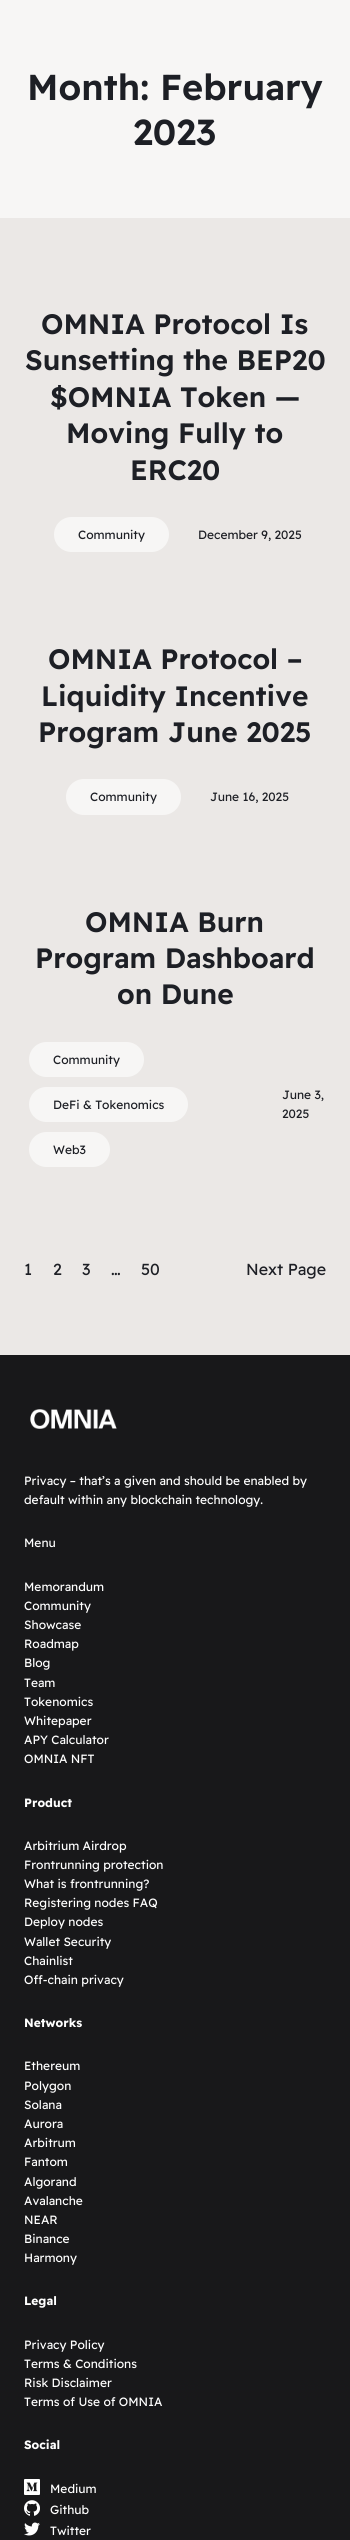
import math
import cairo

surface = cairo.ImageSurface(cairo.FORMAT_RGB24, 350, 2540)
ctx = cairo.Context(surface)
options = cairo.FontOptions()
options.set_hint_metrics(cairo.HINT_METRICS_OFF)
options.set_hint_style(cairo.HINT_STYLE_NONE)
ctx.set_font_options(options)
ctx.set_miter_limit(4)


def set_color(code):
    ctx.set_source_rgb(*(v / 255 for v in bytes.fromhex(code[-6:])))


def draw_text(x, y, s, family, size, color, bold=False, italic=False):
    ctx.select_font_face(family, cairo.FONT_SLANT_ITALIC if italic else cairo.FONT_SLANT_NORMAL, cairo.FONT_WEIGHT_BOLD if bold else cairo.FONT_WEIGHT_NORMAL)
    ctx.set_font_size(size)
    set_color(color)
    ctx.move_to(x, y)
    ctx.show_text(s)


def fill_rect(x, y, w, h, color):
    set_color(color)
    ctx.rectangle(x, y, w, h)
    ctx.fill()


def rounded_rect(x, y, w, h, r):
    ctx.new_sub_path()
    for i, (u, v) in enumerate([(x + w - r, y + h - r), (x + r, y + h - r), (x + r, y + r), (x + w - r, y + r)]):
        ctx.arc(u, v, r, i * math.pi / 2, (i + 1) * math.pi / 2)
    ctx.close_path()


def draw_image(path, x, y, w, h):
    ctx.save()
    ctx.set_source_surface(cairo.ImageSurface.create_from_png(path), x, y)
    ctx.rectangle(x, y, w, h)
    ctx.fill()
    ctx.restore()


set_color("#ebe8e6")
ctx.paint()
fill_rect(0, 0, 350, 218, "#f7f6f5")
draw_text(27, 100, "Month: February", "Readex Pro SemiBold", 36, "#1d1f25")
draw_text(133, 145, "2023", "Readex Pro SemiBold", 36, "#1d1f25")
draw_text(41, 334, "OMNIA Protocol Is", "Readex Pro SemiBold", 28, "#1d1f25")
draw_text(25, 370, "Sunsetting the BEP20", "Readex Pro SemiBold", 28, "#1d1f25")
draw_text(50, 407, "$OMNIA Token —", "Readex Pro SemiBold", 28, "#1d1f25")
draw_text(66, 443, "Moving Fully to", "Readex Pro SemiBold", 28, "#1d1f25")
draw_text(130, 480, "ERC20", "Readex Pro SemiBold", 28, "#1d1f25")
set_color("#f7f6f5")
rounded_rect(54, 517, 115, 35, 17.5)
ctx.fill()
draw_text(78, 539, "Community", "Readex Pro", 12, "#1d1f25")
draw_text(198, 539, "December 9, 2025", "Readex Pro", 12, "#1d1f25")
draw_text(48, 669, "OMNIA Protocol –", "Readex Pro SemiBold", 28, "#1d1f25")
draw_text(41, 706, "Liquidity Incentive", "Readex Pro SemiBold", 28, "#1d1f25")
draw_text(38, 742, "Program June 2025", "Readex Pro SemiBold", 28, "#1d1f25")
set_color("#f7f6f5")
rounded_rect(66, 779, 115, 36, 18)
ctx.fill()
draw_text(90, 801, "Community", "Readex Pro", 12, "#1d1f25")
draw_text(210, 801, "June 16, 2025", "Readex Pro", 12, "#1d1f25")
draw_text(85, 932, "OMNIA Burn", "Readex Pro SemiBold", 28, "#1d1f25")
draw_text(35, 968, "Program Dashboard", "Readex Pro SemiBold", 28, "#1d1f25")
draw_text(117, 1004, "on Dune", "Readex Pro SemiBold", 28, "#1d1f25")
set_color("#f7f6f5")
rounded_rect(29, 1042, 115, 35, 17.5)
ctx.fill()
draw_text(53, 1064, "Community", "Readex Pro", 12, "#1d1f25")
set_color("#f7f6f5")
rounded_rect(29, 1087, 159, 35, 17.5)
ctx.fill()
draw_text(53, 1109, "DeFi & Tokenomics", "Readex Pro", 12, "#1d1f25")
set_color("#f7f6f5")
rounded_rect(29, 1132, 81, 35, 17.5)
ctx.fill()
draw_text(53, 1154, "Web3", "Readex Pro", 12, "#1d1f25")
draw_text(282, 1099, "June 3,", "Readex Pro", 12, "#1d1f25")
draw_text(282, 1118, "2025", "Readex Pro", 12, "#1d1f25")
draw_text(24, 1275, "1", "Readex Pro", 16, "#1d1f25")
draw_text(53, 1275, "2", "Readex Pro", 16, "#1d1f25")
draw_text(82, 1275, "3", "Readex Pro", 16, "#1d1f25")
draw_text(111, 1275, "…", "Readex Pro", 16, "#1d1f25")
draw_text(141, 1275, "50", "Readex Pro", 16, "#1d1f25")
draw_text(246, 1275, "Next Page", "Readex Pro", 16, "#1d1f25")
fill_rect(0, 1355, 350, 1185, "#18181a")
draw_image("assets/img1.png", 30, 1409, 87, 20)
draw_text(24, 1485, "Privacy – that’s a given and should be enabled by", "Readex Pro", 12, "#ffffff")
draw_text(24, 1504, "default within any blockchain technology.", "Readex Pro", 12, "#ffffff")
draw_text(24, 1547, "Menu", "Readex Pro", 12, "#ffffff")
draw_text(24, 1591, "Memorandum", "Readex Pro", 12, "#ffffff")
draw_text(24, 1610, "Community", "Readex Pro", 12, "#ffffff")
draw_text(24, 1629, "Showcase", "Readex Pro", 12, "#ffffff")
draw_text(24, 1648, "Roadmap", "Readex Pro", 12, "#ffffff")
draw_text(24, 1667, "Blog", "Readex Pro", 12, "#ffffff")
draw_text(24, 1687, "Team", "Readex Pro", 12, "#ffffff")
draw_text(24, 1706, "Tokenomics", "Readex Pro", 12, "#ffffff")
draw_text(24, 1725, "Whitepaper", "Readex Pro", 12, "#ffffff")
draw_text(24, 1744, "APY Calculator", "Readex Pro", 12, "#ffffff")
draw_text(24, 1763, "OMNIA NFT", "Readex Pro", 12, "#ffffff")
draw_text(24, 1807, "Product", "Readex Pro", 12, "#ffffff", bold=True)
draw_text(24, 1850, "Arbitrium Airdrop", "Readex Pro", 12, "#ffffff")
draw_text(24, 1869, "Frontrunning protection", "Readex Pro", 12, "#ffffff")
draw_text(24, 1888, "What is frontrunning?", "Readex Pro", 12, "#ffffff")
draw_text(24, 1907, "Registering nodes FAQ", "Readex Pro", 12, "#ffffff")
draw_text(24, 1926, "Deploy nodes", "Readex Pro", 12, "#ffffff")
draw_text(24, 1946, "Wallet Security", "Readex Pro", 12, "#ffffff")
draw_text(24, 1965, "Chainlist", "Readex Pro", 12, "#ffffff")
draw_text(24, 1984, "Off-chain privacy", "Readex Pro", 12, "#ffffff")
draw_text(24, 2027, "Networks", "Readex Pro", 12, "#ffffff", bold=True)
draw_text(24, 2070, "Ethereum", "Readex Pro", 12, "#ffffff")
draw_text(24, 2090, "Polygon", "Readex Pro", 12, "#ffffff")
draw_text(24, 2109, "Solana", "Readex Pro", 12, "#ffffff")
draw_text(24, 2128, "Aurora", "Readex Pro", 12, "#ffffff")
draw_text(24, 2147, "Arbitrum", "Readex Pro", 12, "#ffffff")
draw_text(24, 2166, "Fantom", "Readex Pro", 12, "#ffffff")
draw_text(24, 2186, "Algorand", "Readex Pro", 12, "#ffffff")
draw_text(24, 2205, "Avalanche", "Readex Pro", 12, "#ffffff")
draw_text(24, 2224, "NEAR", "Readex Pro", 12, "#ffffff")
draw_text(24, 2243, "Binance", "Readex Pro", 12, "#ffffff")
draw_text(24, 2262, "Harmony", "Readex Pro", 12, "#ffffff")
draw_text(24, 2305, "Legal", "Readex Pro", 12, "#ffffff", bold=True)
draw_text(24, 2349, "Privacy Policy", "Readex Pro", 12, "#ffffff")
draw_text(24, 2368, "Terms & Conditions", "Readex Pro", 12, "#ffffff")
draw_text(24, 2387, "Risk Disclaimer", "Readex Pro", 12, "#ffffff")
draw_text(24, 2406, "Terms of Use of OMNIA", "Readex Pro", 12, "#ffffff")
draw_text(24, 2449, "Social", "Readex Pro", 12, "#ffffff", bold=True)
draw_image("assets/img2.png", 24, 2479, 16, 16)
draw_text(50, 2493, "Medium", "Readex Pro", 12, "#ffffff")
draw_image("assets/img3.png", 24, 2500, 16, 16)
draw_text(50, 2514, "Github", "Readex Pro", 12, "#ffffff")
draw_image("assets/img4.png", 24, 2522, 16, 14)
draw_text(50, 2535, "Twitter", "Readex Pro", 12, "#ffffff")
surface.write_to_png("output.png")
